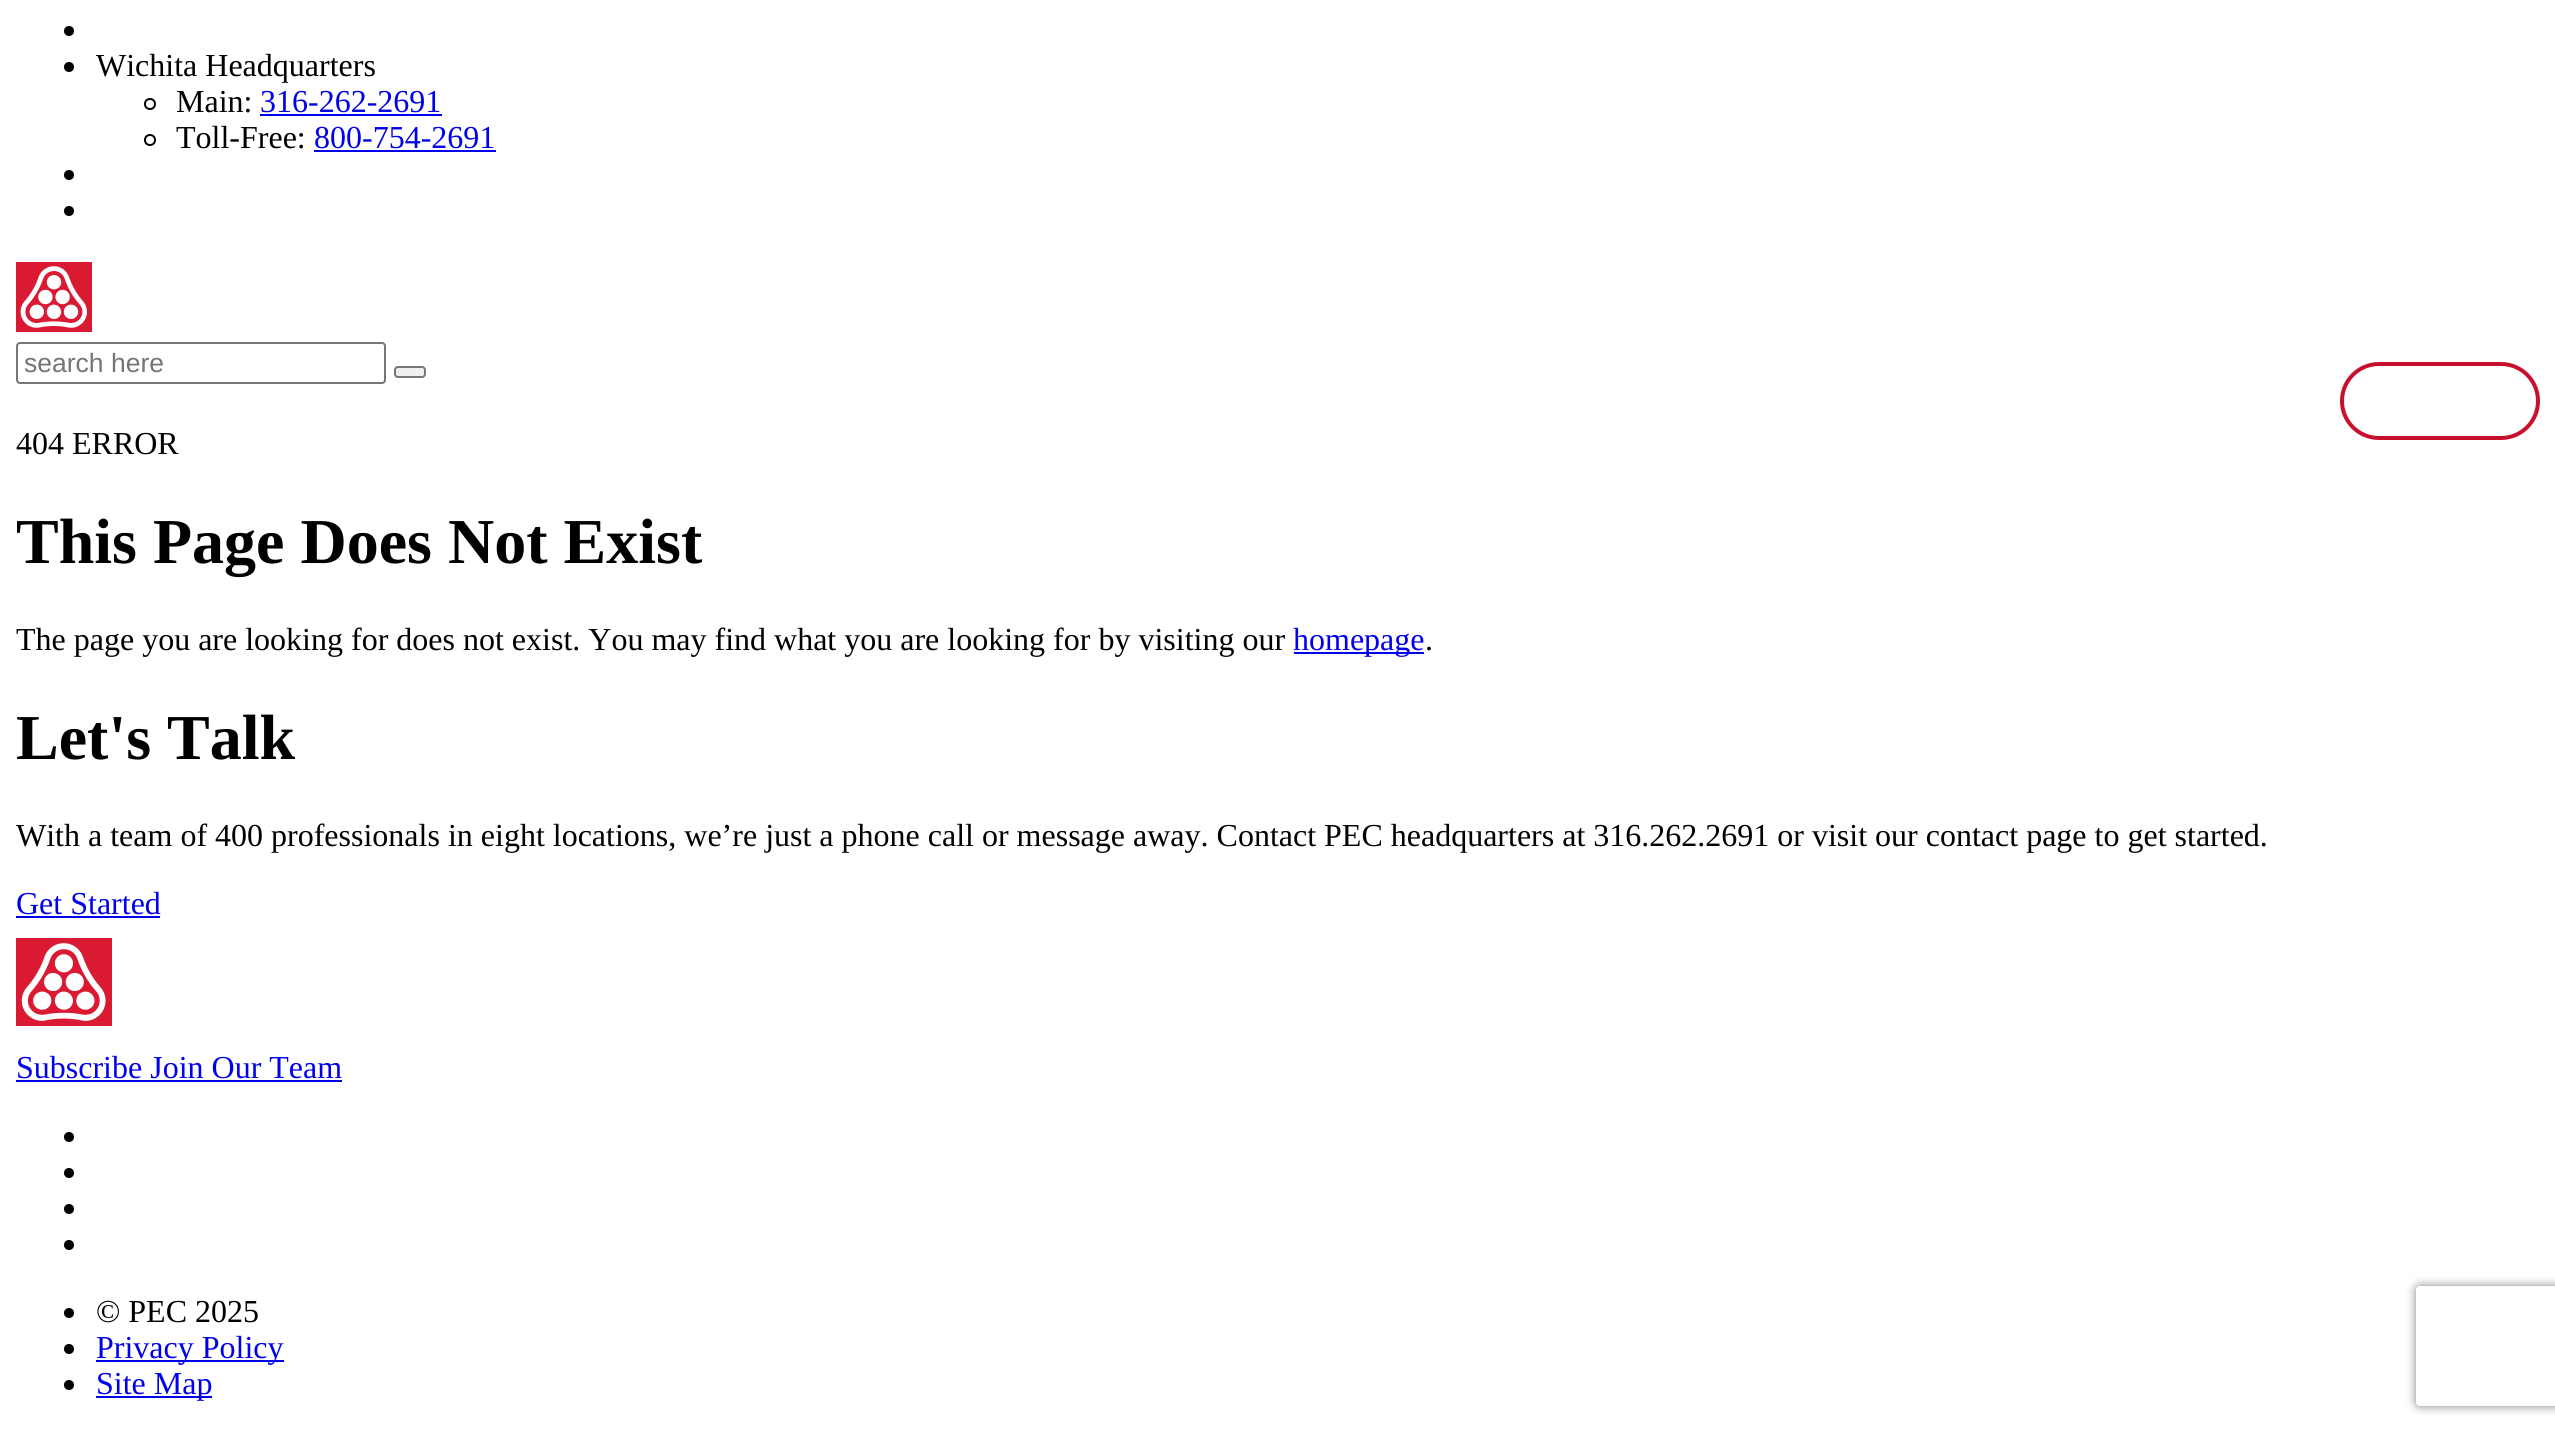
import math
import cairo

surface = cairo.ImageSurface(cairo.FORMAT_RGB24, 2555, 1433)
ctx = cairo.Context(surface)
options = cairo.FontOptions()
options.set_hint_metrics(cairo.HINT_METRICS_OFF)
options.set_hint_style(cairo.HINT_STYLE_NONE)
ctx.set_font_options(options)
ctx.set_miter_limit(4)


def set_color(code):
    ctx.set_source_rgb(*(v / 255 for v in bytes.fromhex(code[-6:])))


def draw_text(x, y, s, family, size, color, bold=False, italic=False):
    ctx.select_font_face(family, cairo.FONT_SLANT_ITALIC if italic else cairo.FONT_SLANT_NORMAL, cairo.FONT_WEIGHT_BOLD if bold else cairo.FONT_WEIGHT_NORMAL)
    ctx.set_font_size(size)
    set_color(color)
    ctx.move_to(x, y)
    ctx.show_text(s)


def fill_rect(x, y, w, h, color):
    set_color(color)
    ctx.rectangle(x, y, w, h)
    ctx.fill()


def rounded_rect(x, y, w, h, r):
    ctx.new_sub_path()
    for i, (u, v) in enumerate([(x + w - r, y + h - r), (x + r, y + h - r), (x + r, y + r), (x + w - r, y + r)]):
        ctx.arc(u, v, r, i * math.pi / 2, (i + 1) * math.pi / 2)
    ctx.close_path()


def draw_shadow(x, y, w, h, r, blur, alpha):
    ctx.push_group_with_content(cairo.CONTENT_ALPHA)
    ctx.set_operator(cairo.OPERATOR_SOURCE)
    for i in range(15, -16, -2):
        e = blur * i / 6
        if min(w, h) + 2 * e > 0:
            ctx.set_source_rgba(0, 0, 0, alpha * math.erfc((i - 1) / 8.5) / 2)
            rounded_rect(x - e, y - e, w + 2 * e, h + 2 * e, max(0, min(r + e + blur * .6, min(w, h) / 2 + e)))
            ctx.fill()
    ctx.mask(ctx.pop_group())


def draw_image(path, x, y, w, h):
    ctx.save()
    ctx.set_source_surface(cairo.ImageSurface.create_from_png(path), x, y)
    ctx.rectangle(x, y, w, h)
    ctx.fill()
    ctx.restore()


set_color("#ffffff")
ctx.paint()
set_color("#000000")
ctx.arc(69, 31, 5, 0, 2 * math.pi)
ctx.fill()
ctx.arc(69, 67, 5, 0, 2 * math.pi)
ctx.fill()
draw_text(96, 76, "Wichita Headquarters", "Liberation Serif", 32, "#000000")
ctx.new_path()
ctx.arc(150, 104, 5, 0, 2 * math.pi)
ctx.stroke()
draw_text(176, 112, "Main:", "Liberation Serif", 32, "#000000")
draw_text(260, 112, "316-262-2691", "Liberation Serif", 32, "#0000ee")
fill_rect(260, 114, 182, 2, "#0000ee")
ctx.new_path()
ctx.arc(150, 140, 5, 0, 2 * math.pi)
set_color("#000000")
ctx.stroke()
draw_text(176, 148, "Toll-Free:", "Liberation Serif", 32, "#000000")
draw_text(314, 148, "800-754-2691", "Liberation Serif", 32, "#0000ee")
fill_rect(314, 150, 182, 2, "#0000ee")
set_color("#000000")
ctx.new_path()
ctx.arc(69, 175, 5, 0, 2 * math.pi)
ctx.fill()
ctx.arc(69, 211, 5, 0, 2 * math.pi)
ctx.fill()
draw_image("assets/img1.png", 16, 262, 76, 70)
rounded_rect(17, 343, 368, 40, 3)
set_color("#767676")
ctx.stroke()
draw_text(24, 372, "search here", "Liberation Sans", 26.5, "#757575")
set_color("#efefef")
rounded_rect(395, 367, 30, 10, 3)
ctx.fill_preserve()
set_color("#767676")
ctx.stroke()
rounded_rect(2342, 364, 196, 74, 37)
set_color("#c8102e")
ctx.set_line_width(4)
ctx.stroke()
draw_text(16, 454, "404 ERROR", "Liberation Serif", 32, "#000000")
draw_text(16, 563, "This Page Does Not Exist", "Liberation Serif", 64, "#000000", bold=True)
draw_text(16, 650, "The page you are looking for does not exist. You may find what you are looking for by visiting our", "Liberation Serif", 32, "#000000")
fill_rect(1294, 652, 130, 2, "#0000ee")
draw_text(1293, 650, "homepage", "Liberation Serif", 32, "#0000ee")
draw_text(1425, 650, ".", "Liberation Serif", 32, "#000000")
draw_text(16, 759, "Let's Talk", "Liberation Serif", 64, "#000000", bold=True)
draw_text(16, 846, "With a team of 400 professionals in eight locations, we’re just a phone call or message away. Contact PEC headquarters at 316.262.2691 or visit our contact page to get started.", "Liberation Serif", 32, "#000000")
draw_text(16, 914, "Get Started", "Liberation Serif", 32, "#0000ee")
fill_rect(16, 916, 144, 2, "#0000ee")
draw_image("assets/img2.png", 16, 938, 96, 88)
draw_text(16, 1078, "Subscribe Join Our Team", "Liberation Serif", 32, "#0000ee")
fill_rect(16, 1080, 326, 2, "#0000ee")
set_color("#000000")
ctx.new_path()
ctx.arc(69, 1137, 5, 0, 2 * math.pi)
ctx.fill()
ctx.arc(69, 1173, 5, 0, 2 * math.pi)
ctx.fill()
ctx.arc(69, 1209, 5, 0, 2 * math.pi)
ctx.fill()
ctx.arc(69, 1245, 5, 0, 2 * math.pi)
ctx.fill()
ctx.arc(69, 1313, 5, 0, 2 * math.pi)
ctx.fill()
draw_text(96, 1322, "© PEC 2025", "Liberation Serif", 32, "#000000")
ctx.new_path()
ctx.arc(69, 1349, 5, 0, 2 * math.pi)
ctx.fill()
fill_rect(96, 1360, 188, 2, "#0000ee")
draw_text(96, 1358, "Privacy Policy", "Liberation Serif", 32, "#0000ee")
set_color("#000000")
ctx.new_path()
ctx.arc(69, 1385, 5, 0, 2 * math.pi)
ctx.fill()
fill_rect(96, 1396, 116, 2, "#0000ee")
draw_text(96, 1394, "Site Map", "Liberation Serif", 32, "#0000ee")
ctx.save()
ctx.set_fill_rule(cairo.FILL_RULE_EVEN_ODD)
ctx.new_path()
ctx.move_to(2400, 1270)
ctx.line_to(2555, 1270)
ctx.line_to(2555, 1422)
ctx.line_to(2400, 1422)
ctx.close_path()
ctx.move_to(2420, 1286)
ctx.line_to(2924, 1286)
ctx.curve_to(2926, 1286, 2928, 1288, 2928, 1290)
ctx.line_to(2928, 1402)
ctx.curve_to(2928, 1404, 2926, 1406, 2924, 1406)
ctx.line_to(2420, 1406)
ctx.curve_to(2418, 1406, 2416, 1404, 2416, 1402)
ctx.line_to(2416, 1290)
ctx.curve_to(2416, 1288, 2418, 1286, 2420, 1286)
ctx.close_path()
ctx.clip()
set_color("#808080")
draw_shadow(2416, 1286, 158, 120, 4, 5, 1)
ctx.restore()
surface.write_to_png("output.png")
